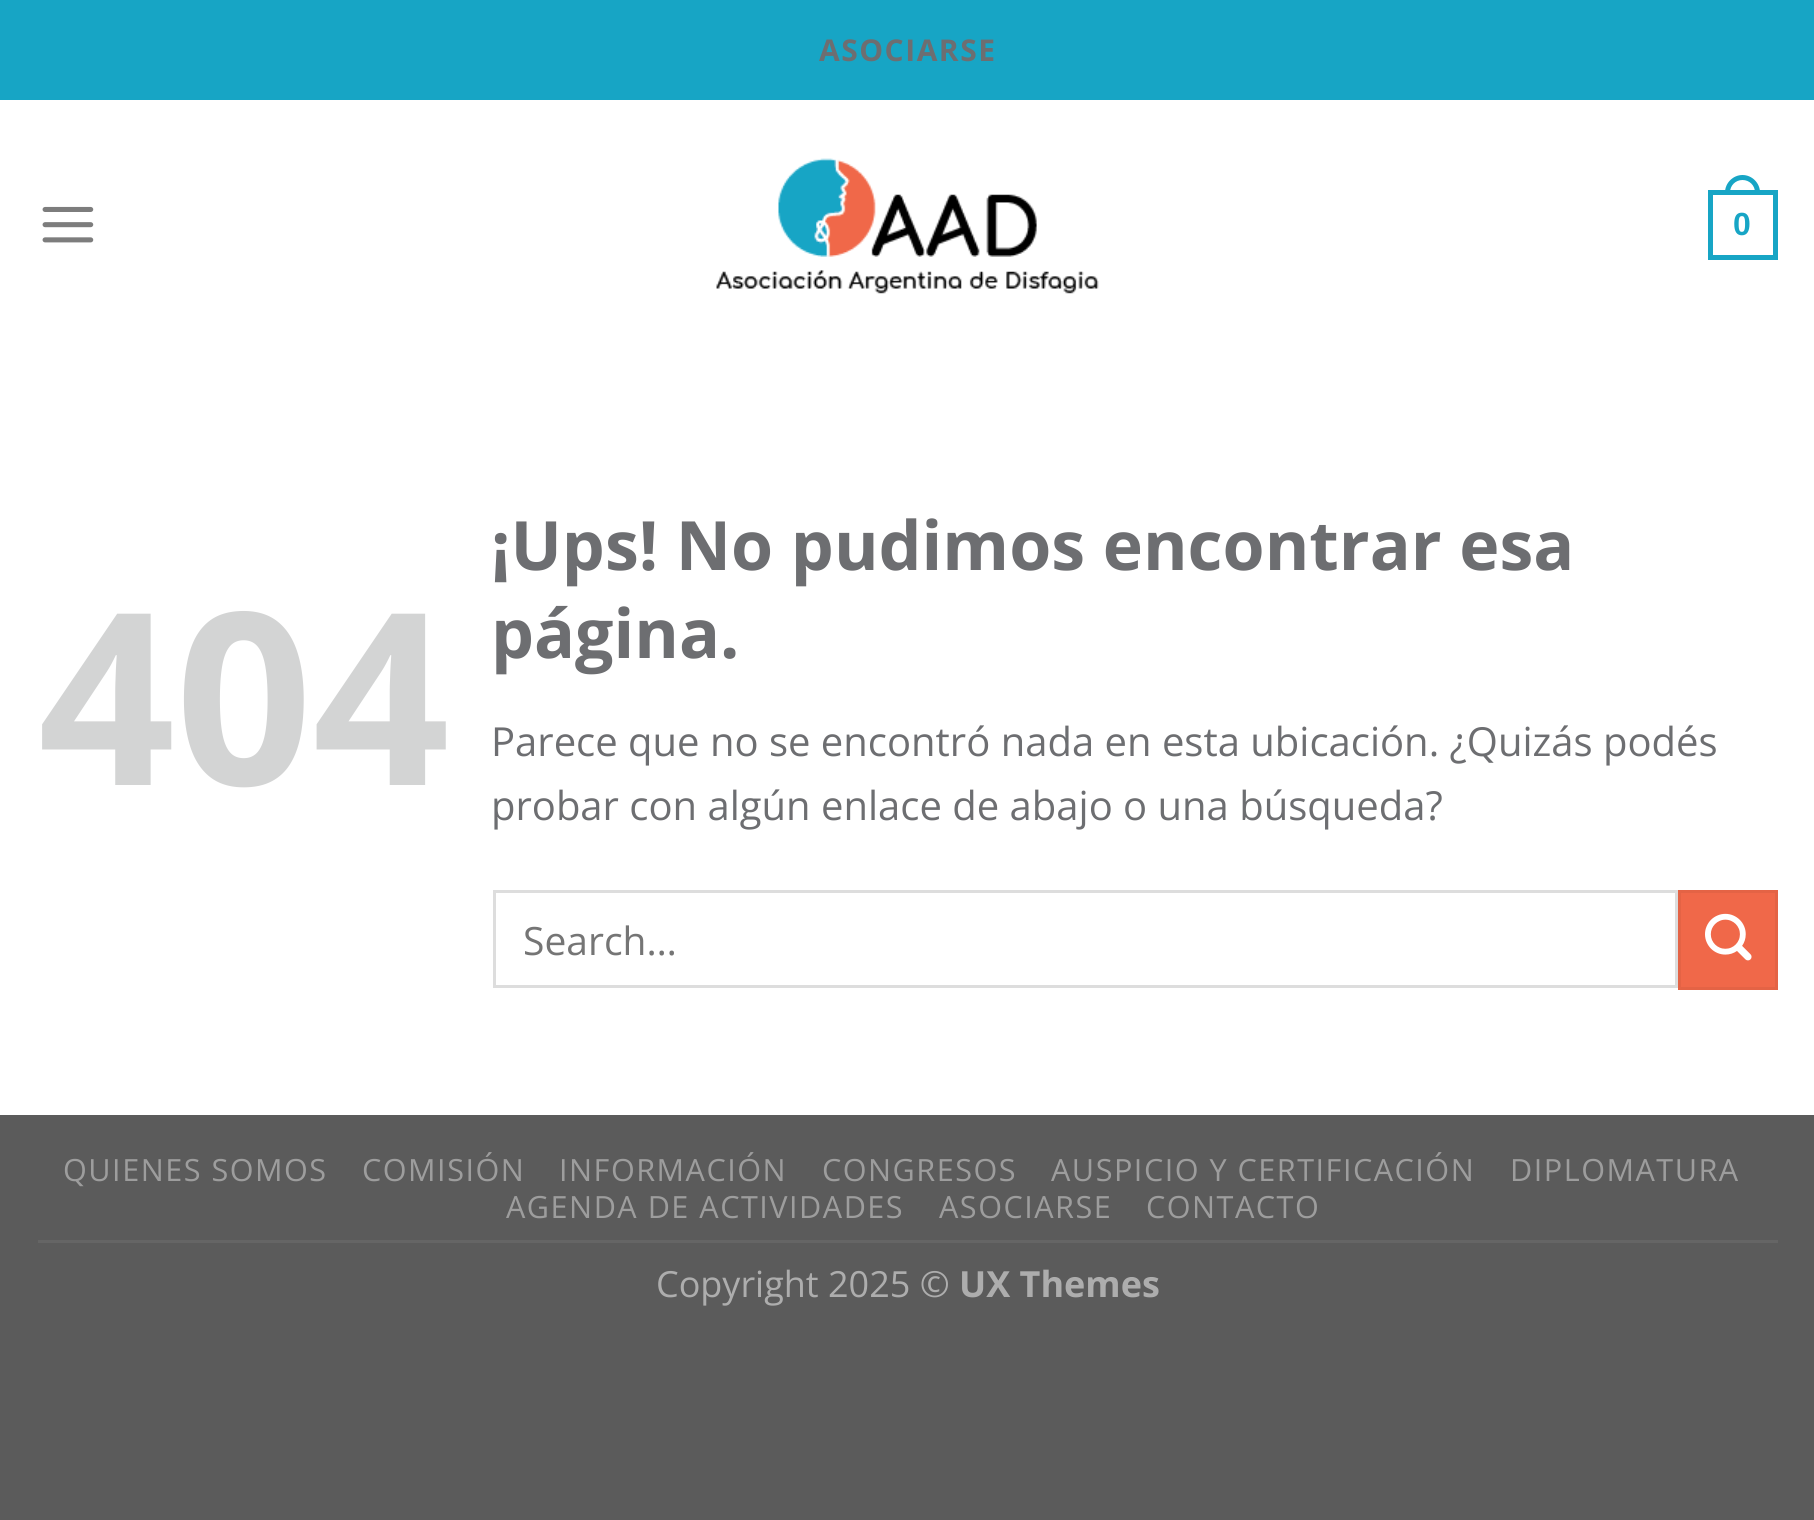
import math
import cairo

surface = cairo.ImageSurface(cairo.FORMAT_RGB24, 1814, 1520)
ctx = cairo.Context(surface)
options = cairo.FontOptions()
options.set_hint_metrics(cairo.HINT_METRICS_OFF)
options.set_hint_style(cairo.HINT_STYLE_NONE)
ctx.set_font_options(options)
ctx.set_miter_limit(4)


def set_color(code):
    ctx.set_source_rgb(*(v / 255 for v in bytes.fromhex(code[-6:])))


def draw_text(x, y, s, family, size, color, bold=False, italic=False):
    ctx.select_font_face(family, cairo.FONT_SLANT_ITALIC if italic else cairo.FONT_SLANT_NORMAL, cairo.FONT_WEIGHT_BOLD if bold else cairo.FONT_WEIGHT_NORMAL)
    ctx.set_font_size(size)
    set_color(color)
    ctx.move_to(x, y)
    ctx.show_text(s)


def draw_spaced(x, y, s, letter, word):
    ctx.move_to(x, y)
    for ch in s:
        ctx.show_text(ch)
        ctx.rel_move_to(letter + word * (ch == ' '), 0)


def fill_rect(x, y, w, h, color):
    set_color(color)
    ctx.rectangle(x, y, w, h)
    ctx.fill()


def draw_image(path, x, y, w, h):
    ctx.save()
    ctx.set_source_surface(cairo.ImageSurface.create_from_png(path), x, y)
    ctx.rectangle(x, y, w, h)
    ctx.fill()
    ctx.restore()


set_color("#5b5b5b")
ctx.paint()
fill_rect(0, 100, 1814, 1015, "#ffffff")
fill_rect(0, 0, 1814, 100, "#17a5c5")
ctx.select_font_face("Open Sans", cairo.FONT_SLANT_NORMAL, cairo.FONT_WEIGHT_BOLD)
ctx.set_font_size(30)
set_color("#6d6e71")
draw_spaced(819, 61, "ASOCIARSE", 1.5, 0)
draw_image("assets/img1.png", 42, 206, 52, 37)
draw_image("assets/img2.png", 716, 158, 383, 136)
ctx.rectangle(1710.5, 192.5, 65, 65)
set_color("#17a5c5")
ctx.set_line_width(5)
ctx.stroke()
ctx.set_fill_rule(cairo.FILL_RULE_EVEN_ODD)
ctx.new_path()
ctx.move_to(1742.5, 175)
ctx.curve_to(1752, 175, 1760, 183, 1760, 192.5)
ctx.line_to(1760, 195)
ctx.line_to(1725, 195)
ctx.line_to(1725, 192.5)
ctx.curve_to(1725, 183, 1733, 175, 1742.5, 175)
ctx.close_path()
ctx.move_to(1742.5, 180)
ctx.curve_to(1749.5, 180, 1755, 185.5, 1755, 192.5)
ctx.line_to(1755, 195)
ctx.line_to(1730, 195)
ctx.line_to(1730, 192.5)
ctx.curve_to(1730, 185.5, 1735.5, 180, 1742.5, 180)
ctx.close_path()
ctx.fill()
draw_text(1733, 235, "0", "Liberation Sans", 32, "#17a5c5", bold=True)
draw_text(38, 785, "404", "Open Sans", 240, "#d3d4d4", bold=True)
draw_text(491, 570, "¡Ups! No pudimos encontrar esa", "Open Sans", 68, "#6d6e71", bold=True)
draw_text(491, 658, "página.", "Open Sans", 68, "#6d6e71", bold=True)
draw_text(491, 756, "Parece que no se encontró nada en esta ubicación. ¿Quizás podés", "Open Sans", 40, "#6d6e71")
draw_text(491, 820, "probar con algún enlace de abajo o una búsqueda?", "Open Sans", 40, "#6d6e71")
ctx.rectangle(494.5, 891.5, 1182, 95)
set_color("#dddddd")
ctx.set_line_width(3)
ctx.stroke()
draw_text(523, 955, "Search…", "Open Sans", 39, "#757575")
set_color("#f06849")
ctx.rectangle(1679.5, 891.5, 97, 97)
ctx.fill_preserve()
set_color("#e46345")
ctx.stroke()
draw_image("assets/img3.png", 1705, 913, 47, 48)
fill_rect(38, 1240, 1740, 3, "#656565")
ctx.set_font_size(30.6)
set_color("#9d9d9d")
draw_spaced(63, 1181, "QUIENES SOMOS", 1.5, 0)
draw_spaced(362, 1181, "COMISIÓN", 1.5, 0)
draw_spaced(559, 1181, "INFORMACIÓN", 1.5, 0)
draw_spaced(822, 1181, "CONGRESOS", 1.5, 0)
draw_spaced(1051, 1181, "AUSPICIO Y CERTIFICACIÓN", 1.5, 0)
draw_spaced(1510, 1181, "DIPLOMATURA", 1.5, 0)
draw_spaced(506, 1218, "AGENDA DE ACTIVIDADES", 1.5, 0)
draw_spaced(939, 1218, "ASOCIARSE", 1.5, 0)
draw_spaced(1146, 1218, "CONTACTO", 1.5, 0)
draw_text(656, 1297, "Copyright 2025 ©", "Open Sans", 36, "#adadad")
draw_text(959, 1297, "UX Themes", "Open Sans", 36, "#adadad", bold=True)
surface.write_to_png("output.png")
